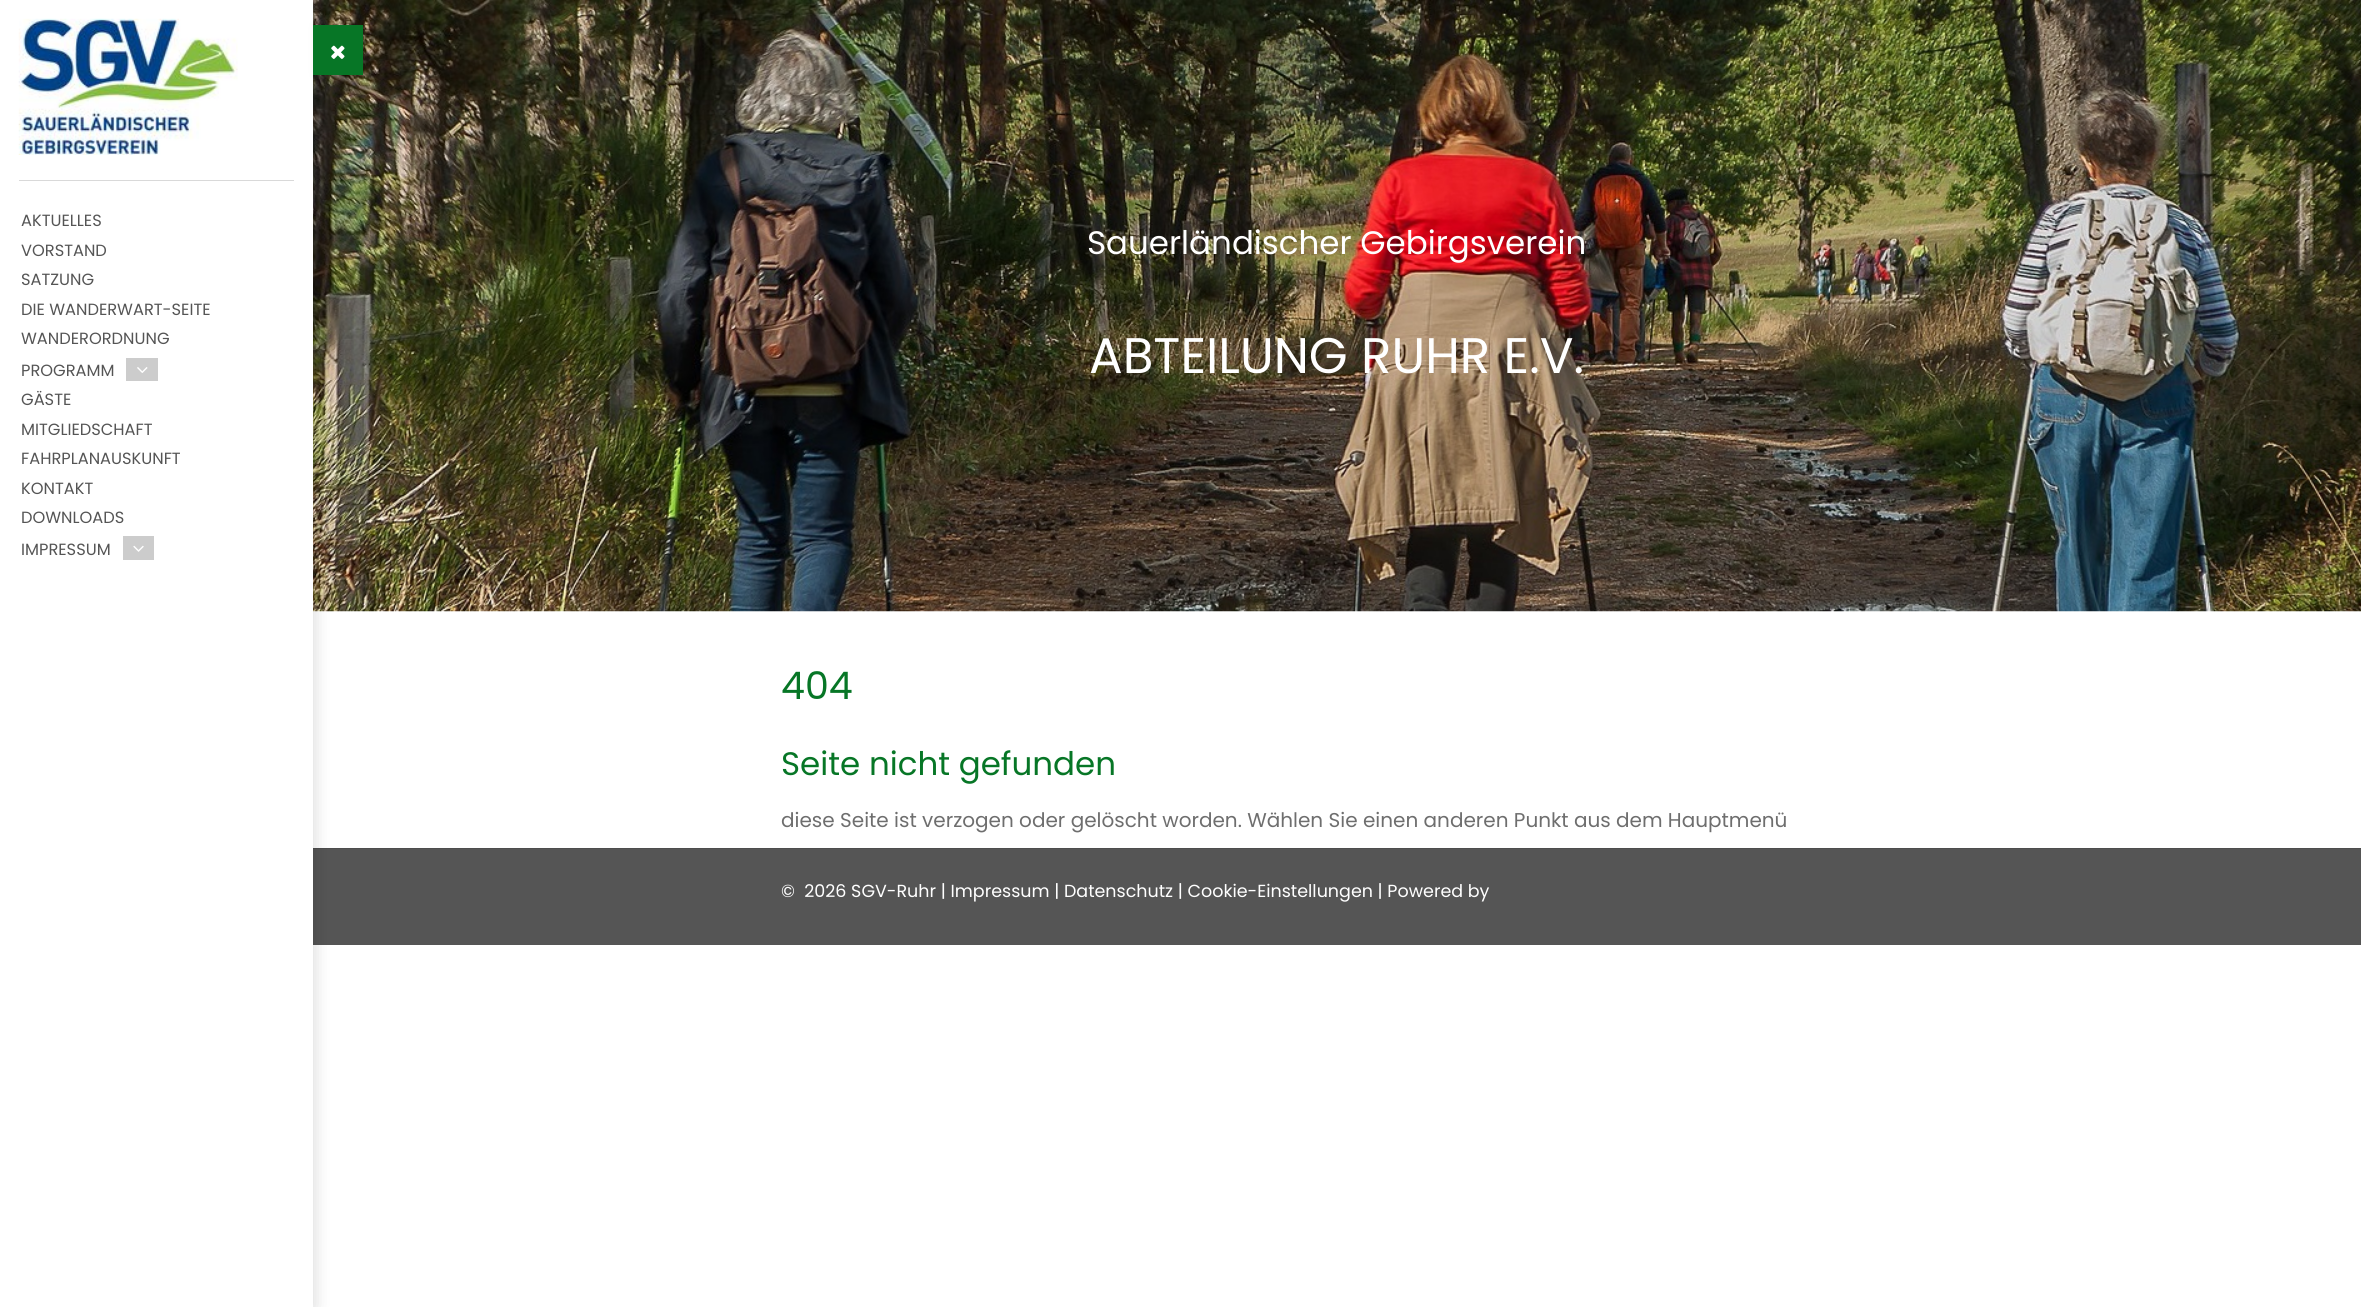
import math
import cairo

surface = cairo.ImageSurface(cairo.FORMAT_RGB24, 2361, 1307)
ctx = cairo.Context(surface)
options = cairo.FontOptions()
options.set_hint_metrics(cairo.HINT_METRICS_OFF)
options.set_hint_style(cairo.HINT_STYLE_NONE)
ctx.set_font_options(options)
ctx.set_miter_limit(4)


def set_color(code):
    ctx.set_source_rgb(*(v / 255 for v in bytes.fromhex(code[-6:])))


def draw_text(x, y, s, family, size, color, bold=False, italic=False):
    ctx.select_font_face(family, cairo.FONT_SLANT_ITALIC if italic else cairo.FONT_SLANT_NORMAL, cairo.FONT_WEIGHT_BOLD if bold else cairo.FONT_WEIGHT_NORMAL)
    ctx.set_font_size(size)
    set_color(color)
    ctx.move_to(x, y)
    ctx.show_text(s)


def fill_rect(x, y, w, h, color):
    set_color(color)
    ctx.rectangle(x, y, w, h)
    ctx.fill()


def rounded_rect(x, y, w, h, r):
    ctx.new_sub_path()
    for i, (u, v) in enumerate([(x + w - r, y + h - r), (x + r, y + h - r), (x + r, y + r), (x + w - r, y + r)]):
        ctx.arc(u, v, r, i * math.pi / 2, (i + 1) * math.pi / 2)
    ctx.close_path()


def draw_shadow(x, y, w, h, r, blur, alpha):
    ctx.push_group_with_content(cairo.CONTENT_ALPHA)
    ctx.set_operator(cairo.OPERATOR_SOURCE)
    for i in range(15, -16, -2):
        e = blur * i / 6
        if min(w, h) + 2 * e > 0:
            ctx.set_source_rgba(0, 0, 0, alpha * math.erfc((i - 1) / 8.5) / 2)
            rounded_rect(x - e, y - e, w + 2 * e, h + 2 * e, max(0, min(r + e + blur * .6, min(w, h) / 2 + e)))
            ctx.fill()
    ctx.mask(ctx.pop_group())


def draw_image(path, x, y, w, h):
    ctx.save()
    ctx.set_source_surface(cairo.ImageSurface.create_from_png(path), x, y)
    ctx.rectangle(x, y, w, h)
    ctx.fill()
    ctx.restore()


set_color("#ffffff")
ctx.paint()
draw_image("assets/img5.png", 313, 0, 2048, 612)
fill_rect(313, 849, 2048, 96, "#555555")
fill_rect(313, 848, 2048, 1, "#4d4d4d")
set_color("#000000")
draw_shadow(3, 0, 312, 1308, 0, 8, 0.14)
fill_rect(0, 0, 313, 1307, "#ffffff")
set_color("#000000")
draw_shadow(323, 25, 50, 50, 0, 8, 0.14)
fill_rect(313, 25, 50, 50, "#077626")
draw_image("assets/img1.png", 331, 45, 14, 14)
draw_image("assets/img2.png", 18, 18, 220, 137)
fill_rect(19, 180, 275, 1, "#d9d9d9")
draw_text(21, 226, "AKTUELLES", "Poppins", 16.25, "#555555")
draw_text(21, 256, "VORSTAND", "Poppins", 16.25, "#555555")
draw_text(21, 285, "SATZUNG", "Poppins", 16.25, "#555555")
draw_text(21, 315, "DIE WANDERWART-SEITE", "Poppins", 16.25, "#555555")
draw_text(21, 344, "WANDERORDNUNG", "Poppins", 16.25, "#555555")
draw_text(21, 376, "PROGRAMM", "Poppins", 16.25, "#555555")
fill_rect(126, 358, 32, 23, "#cccccc")
draw_image("assets/img3.png", 137, 367, 11, 6)
draw_text(21, 405, "GÄSTE", "Poppins", 16.25, "#555555")
draw_text(21, 435, "MITGLIEDSCHAFT", "Poppins", 16.25, "#555555")
draw_text(21, 464, "FAHRPLANAUSKUNFT", "Poppins", 16.25, "#555555")
draw_text(21, 494, "KONTAKT", "Poppins", 16.25, "#555555")
draw_text(21, 523, "DOWNLOADS", "Poppins", 16.25, "#555555")
draw_text(21, 555, "IMPRESSUM", "Poppins", 16.25, "#555555")
fill_rect(123, 536, 31, 24, "#cccccc")
draw_image("assets/img4.png", 133, 545, 11, 7)
draw_text(781, 699, "404", "Poppins", 38, "#077626")
draw_text(781, 775, "Seite nicht gefunden", "Poppins", 32.5, "#077626")
draw_text(781, 827, "diese Seite ist verzogen oder gelöscht worden. Wählen Sie einen anderen Punkt aus dem Hauptmenü", "Poppins", 20, "#6e6e6e")
draw_text(1087, 254, "Sauerländischer Gebirgsverein", "Poppins", 32.5, "#ffffff")
draw_text(1089, 373, "ABTEILUNG RUHR E.V.", "Poppins", 50, "#ffffff")
draw_text(781, 897, "©  2026 SGV-Ruhr | Impressum | Datenschutz | Cookie-Einstellungen | Powered by", "Poppins", 17.5, "#ffffff")
surface.write_to_png("output.png")
